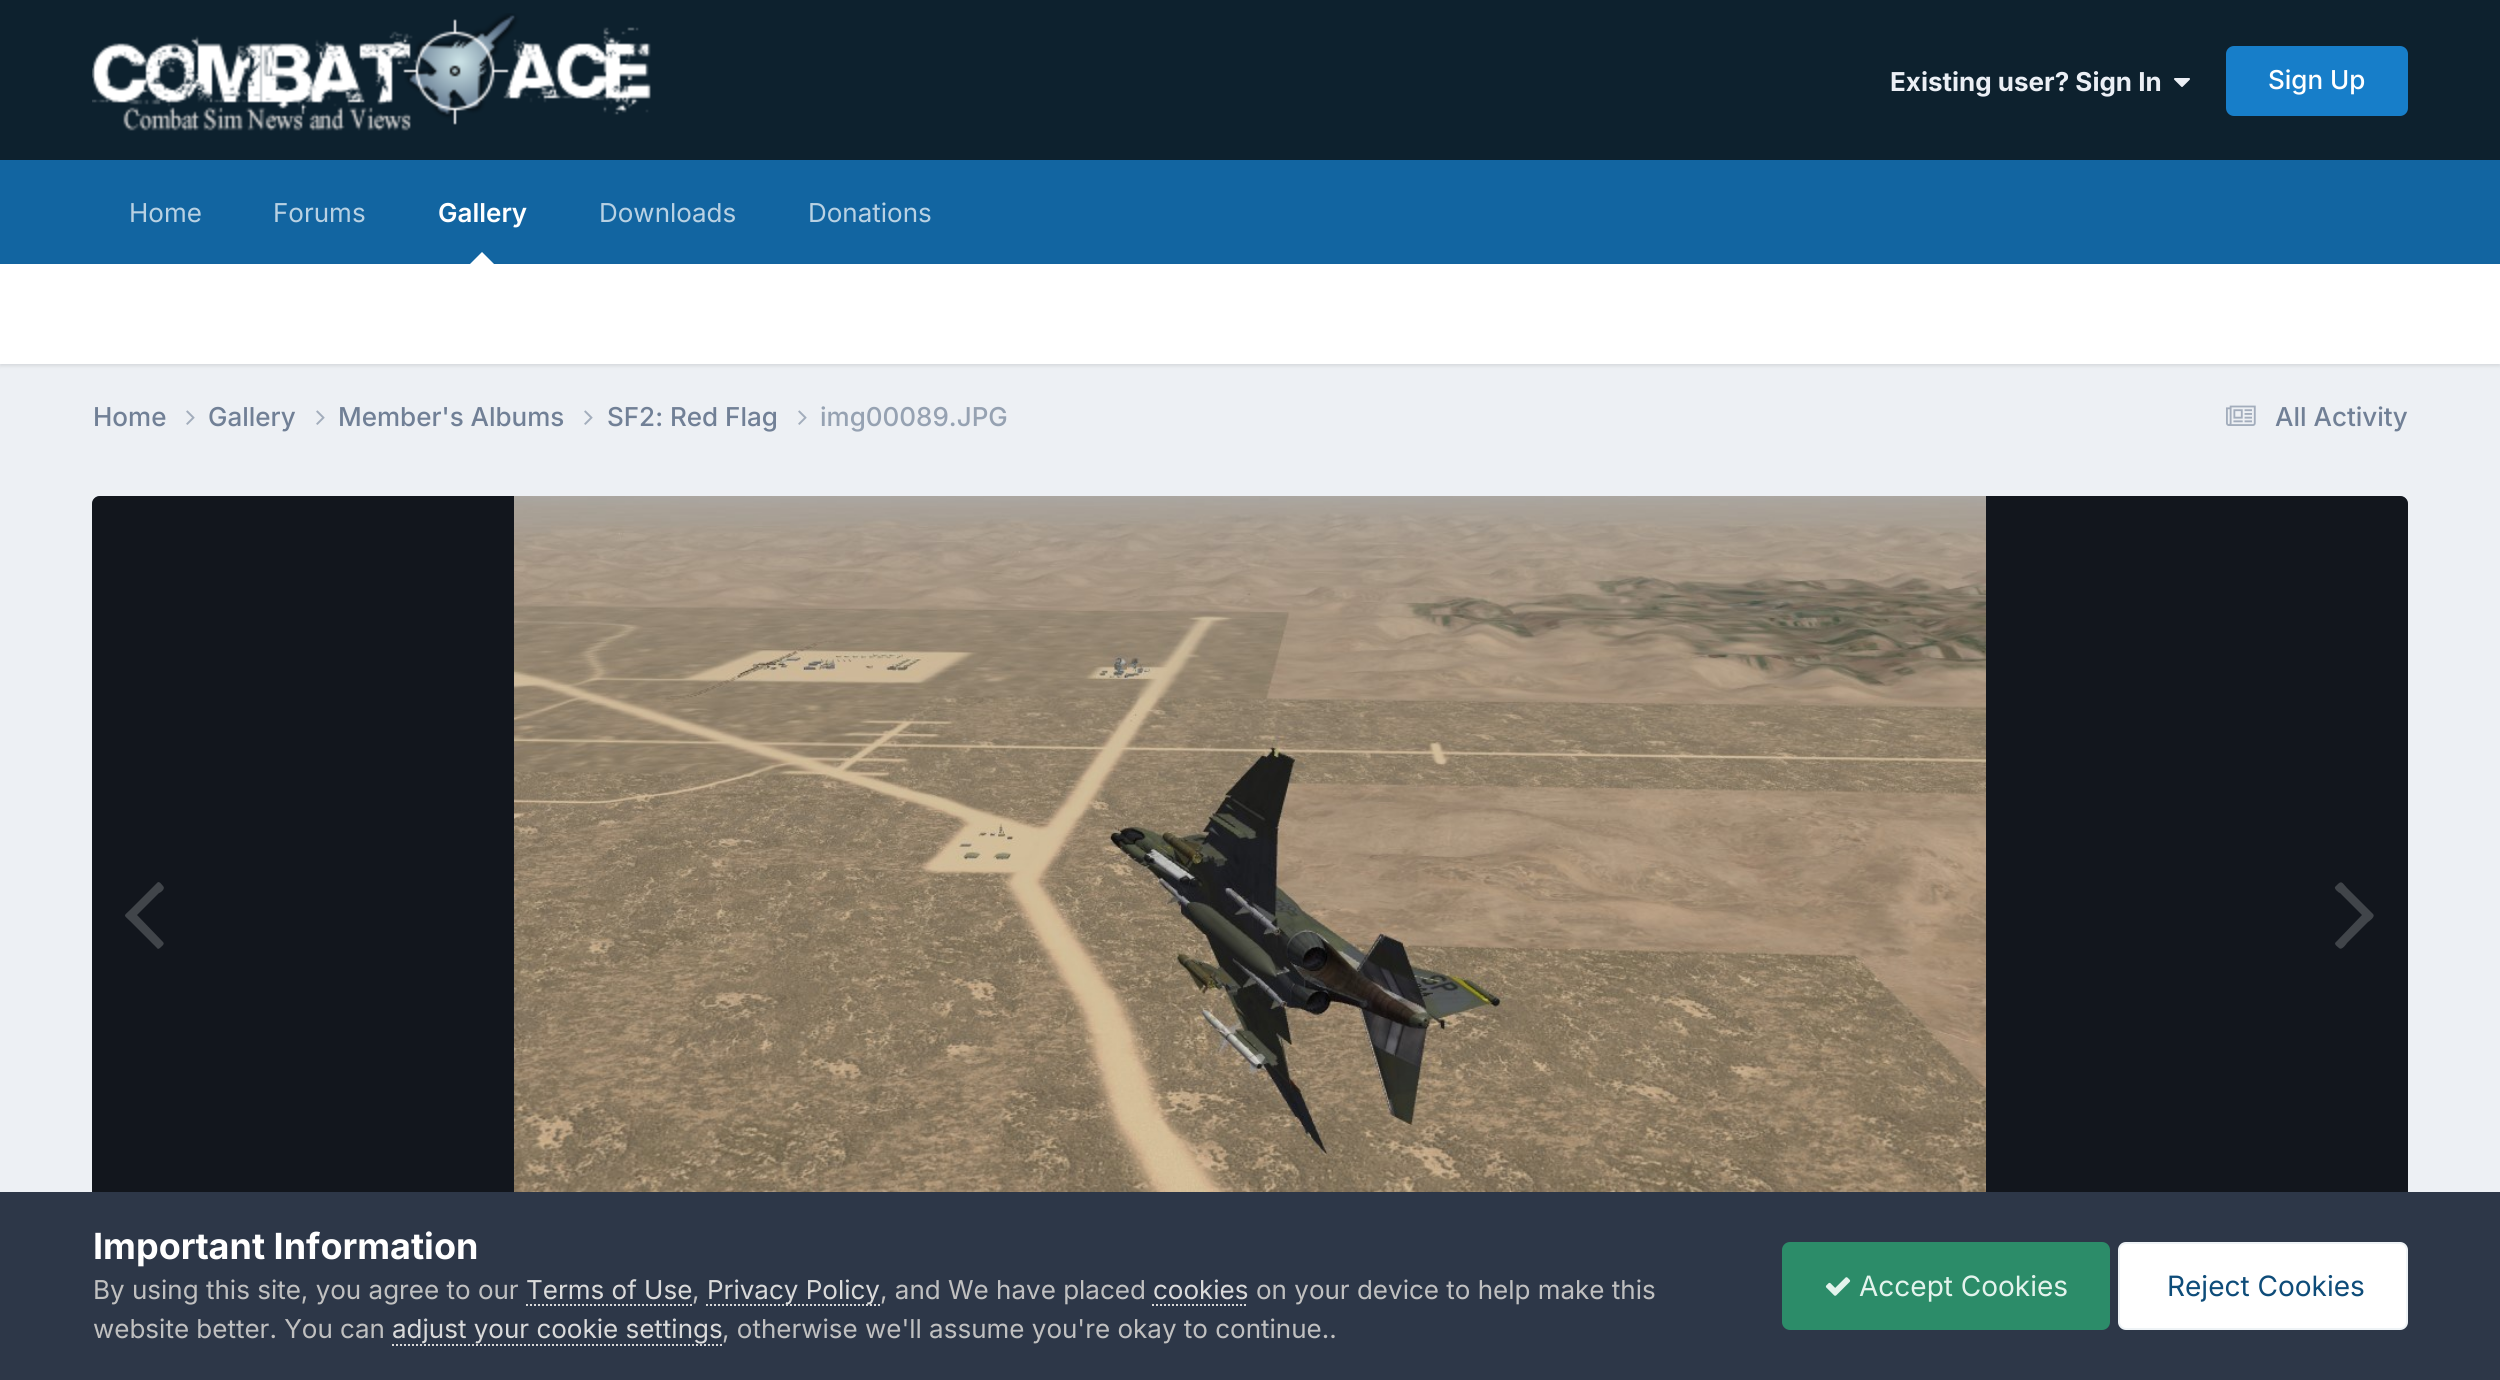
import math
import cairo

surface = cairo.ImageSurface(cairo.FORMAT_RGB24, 2500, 1380)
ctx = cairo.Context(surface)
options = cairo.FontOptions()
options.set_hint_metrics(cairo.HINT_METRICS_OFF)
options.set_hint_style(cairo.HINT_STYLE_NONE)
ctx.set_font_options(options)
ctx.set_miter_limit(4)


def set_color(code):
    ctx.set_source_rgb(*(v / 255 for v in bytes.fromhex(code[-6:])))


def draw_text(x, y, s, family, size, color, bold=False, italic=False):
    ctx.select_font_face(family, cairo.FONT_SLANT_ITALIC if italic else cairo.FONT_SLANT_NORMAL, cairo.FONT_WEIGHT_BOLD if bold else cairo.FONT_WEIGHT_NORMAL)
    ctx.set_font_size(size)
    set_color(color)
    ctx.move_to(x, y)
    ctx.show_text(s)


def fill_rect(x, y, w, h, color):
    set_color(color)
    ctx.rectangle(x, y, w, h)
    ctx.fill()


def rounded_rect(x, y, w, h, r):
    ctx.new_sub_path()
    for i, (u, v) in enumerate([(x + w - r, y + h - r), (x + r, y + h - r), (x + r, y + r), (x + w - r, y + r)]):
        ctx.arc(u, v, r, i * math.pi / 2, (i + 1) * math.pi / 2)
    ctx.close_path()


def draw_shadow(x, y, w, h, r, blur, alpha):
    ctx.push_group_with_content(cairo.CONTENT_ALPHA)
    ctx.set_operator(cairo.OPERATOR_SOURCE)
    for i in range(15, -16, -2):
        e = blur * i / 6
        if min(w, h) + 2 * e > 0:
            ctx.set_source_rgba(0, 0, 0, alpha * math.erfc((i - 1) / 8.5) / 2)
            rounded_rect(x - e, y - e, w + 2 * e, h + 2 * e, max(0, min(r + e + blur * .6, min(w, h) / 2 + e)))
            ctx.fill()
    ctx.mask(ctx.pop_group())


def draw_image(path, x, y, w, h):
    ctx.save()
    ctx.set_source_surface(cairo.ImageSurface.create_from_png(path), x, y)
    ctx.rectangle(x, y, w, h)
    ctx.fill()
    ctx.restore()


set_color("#edf0f4")
ctx.paint()
fill_rect(0, 0, 2500, 160, "#0d212e")
draw_image("assets/img1.png", 92, 13, 559, 118)
draw_text(1890, 91, "Existing user? Sign In", "Inter", 26, "#ebeff5", bold=True)
draw_image("assets/img2.png", 2174, 78, 16, 9)
set_color("#177ec9")
rounded_rect(2226, 46, 182, 70, 8)
ctx.fill()
draw_text(2268, 89, "Sign Up", "Inter Medium", 26, "#ffffff")
fill_rect(0, 160, 2500, 104, "#1265a1")
draw_text(129, 222, "Home", "Inter", 26, "#b8d1e3")
draw_text(273, 222, "Forums", "Inter", 26, "#b8d1e3")
draw_text(438, 222, "Gallery", "Inter SemiBold", 26, "#ffffff")
set_color("#000000")
draw_shadow(0, 266, 2500, 100, 0, 2, 0.1)
set_color("#ffffff")
ctx.new_path()
ctx.move_to(494, 264)
ctx.line_to(470, 264)
ctx.line_to(482, 252)
ctx.close_path()
ctx.fill()
draw_text(599, 222, "Downloads", "Inter", 26, "#b8d1e3")
draw_text(808, 222, "Donations", "Inter", 26, "#b8d1e3")
fill_rect(0, 264, 2500, 100, "#ffffff")
draw_text(93, 426, "Home", "Inter Medium", 26, "#718096")
draw_image("assets/img3.png", 186, 410, 9, 15)
draw_text(208, 426, "Gallery", "Inter Medium", 26, "#718096")
draw_image("assets/img3.png", 316, 410, 9, 15)
draw_text(338, 426, "Member's Albums", "Inter Medium", 26, "#718096")
draw_image("assets/img3.png", 584, 410, 9, 15)
draw_text(607, 426, "SF2: Red Flag", "Inter Medium", 26, "#718096")
draw_image("assets/img3.png", 798, 410, 9, 15)
draw_text(820, 426, "img00089.JPG", "Inter Medium", 26, "#96a2b2")
draw_image("assets/img4.png", 2226, 405, 30, 21)
draw_text(2275, 426, "All Activity", "Inter Medium", 26, "#718096")
set_color("#2d3748")
ctx.new_path()
ctx.move_to(100, 496)
ctx.line_to(2400, 496)
ctx.curve_to(2404.5, 496, 2408, 499.5, 2408, 504)
ctx.line_to(2408, 1324)
ctx.line_to(92, 1324)
ctx.line_to(92, 504)
ctx.curve_to(92, 499.5, 95.5, 496, 100, 496)
ctx.close_path()
ctx.fill()
ctx.set_source_rgba(0, 0, 0, 0.6)
ctx.new_path()
ctx.move_to(100, 496)
ctx.line_to(2400, 496)
ctx.curve_to(2404.5, 496, 2408, 499.5, 2408, 504)
ctx.line_to(2408, 1324)
ctx.line_to(92, 1324)
ctx.line_to(92, 504)
ctx.curve_to(92, 499.5, 95.5, 496, 100, 496)
ctx.close_path()
ctx.fill()
draw_image("assets/img5.png", 514, 496, 1472, 696)
set_color("#41454a")
ctx.new_path()
ctx.move_to(163, 886)
ctx.curve_to(166, 889, 160, 893, 159, 893)
ctx.line_to(137, 915)
ctx.line_to(163, 942)
ctx.curve_to(165, 944, 162, 946, 161, 947)
ctx.curve_to(160, 948, 158, 950, 157, 948)
ctx.line_to(131, 922)
ctx.curve_to(123, 914, 123, 917, 131, 909)
ctx.line_to(157, 883)
ctx.curve_to(159, 880, 162, 885, 163, 886)
ctx.close_path()
ctx.fill()
ctx.new_path()
ctx.move_to(2373, 914)
ctx.curve_to(2376, 917, 2368, 922, 2368, 922)
ctx.line_to(2347, 943)
ctx.curve_to(2347, 943, 2342, 951, 2339, 948)
ctx.curve_to(2338, 947, 2333, 944, 2336, 942)
ctx.line_to(2362, 915)
ctx.line_to(2340, 893)
ctx.curve_to(2339, 893, 2334, 889, 2335, 887)
ctx.line_to(2338, 884)
ctx.curve_to(2342, 880, 2343, 884, 2347, 888)
ctx.close_path()
ctx.fill()
fill_rect(0, 1192, 2500, 188, "#2d3748")
draw_text(93, 1259, "Important Information", "Inter", 36, "#ffffff", bold=True)
draw_text(93, 1299, "By using this site, you agree to our", "Inter", 26, "#c0c0c0")
draw_text(526, 1299, "Terms of Use", "Inter", 26, "#dadada")
ctx.new_path()
ctx.move_to(526, 1305)
ctx.line_to(692, 1305)
ctx.set_dash([2, 2])
ctx.stroke()
draw_text(692, 1299, ",", "Inter", 26, "#c0c0c0")
ctx.new_path()
ctx.move_to(706, 1305)
ctx.line_to(880, 1305)
set_color("#dadada")
ctx.stroke()
draw_text(707, 1299, "Privacy Policy", "Inter", 26, "#dadada")
draw_text(880, 1299, ", and We have placed", "Inter", 26, "#c0c0c0")
draw_text(1153, 1299, "cookies", "Inter", 26, "#dadada")
ctx.new_path()
ctx.move_to(1152, 1305)
ctx.line_to(1248, 1305)
ctx.stroke()
draw_text(1256, 1299, "on your device to help make this", "Inter", 26, "#c0c0c0")
draw_text(93, 1338, "website better. You can", "Inter", 26, "#c0c0c0")
draw_text(392, 1338, "adjust your cookie settings", "Inter", 26, "#dadada")
ctx.new_path()
ctx.move_to(392, 1345)
ctx.line_to(722, 1345)
ctx.stroke()
draw_text(722, 1338, ", otherwise we'll assume you're okay to continue..", "Inter", 26, "#c0c0c0")
set_color("#2c8c69")
rounded_rect(1782, 1242, 328, 88, 8)
ctx.fill()
draw_image("assets/img6.png", 1825, 1277, 26, 19)
draw_text(1859, 1296, "Accept Cookies", "Inter", 28, "#e3f3ec")
set_color("#ffffff")
rounded_rect(2118, 1242, 290, 88, 8)
ctx.fill()
rounded_rect(2119, 1243, 288, 86, 7)
ctx.set_source_rgba(0.055, 0.298, 0.475, 0.07)
ctx.set_dash([])
ctx.stroke()
draw_text(2167, 1296, "Reject Cookies", "Inter", 28, "#0e4c79")
surface.write_to_png("output.png")
